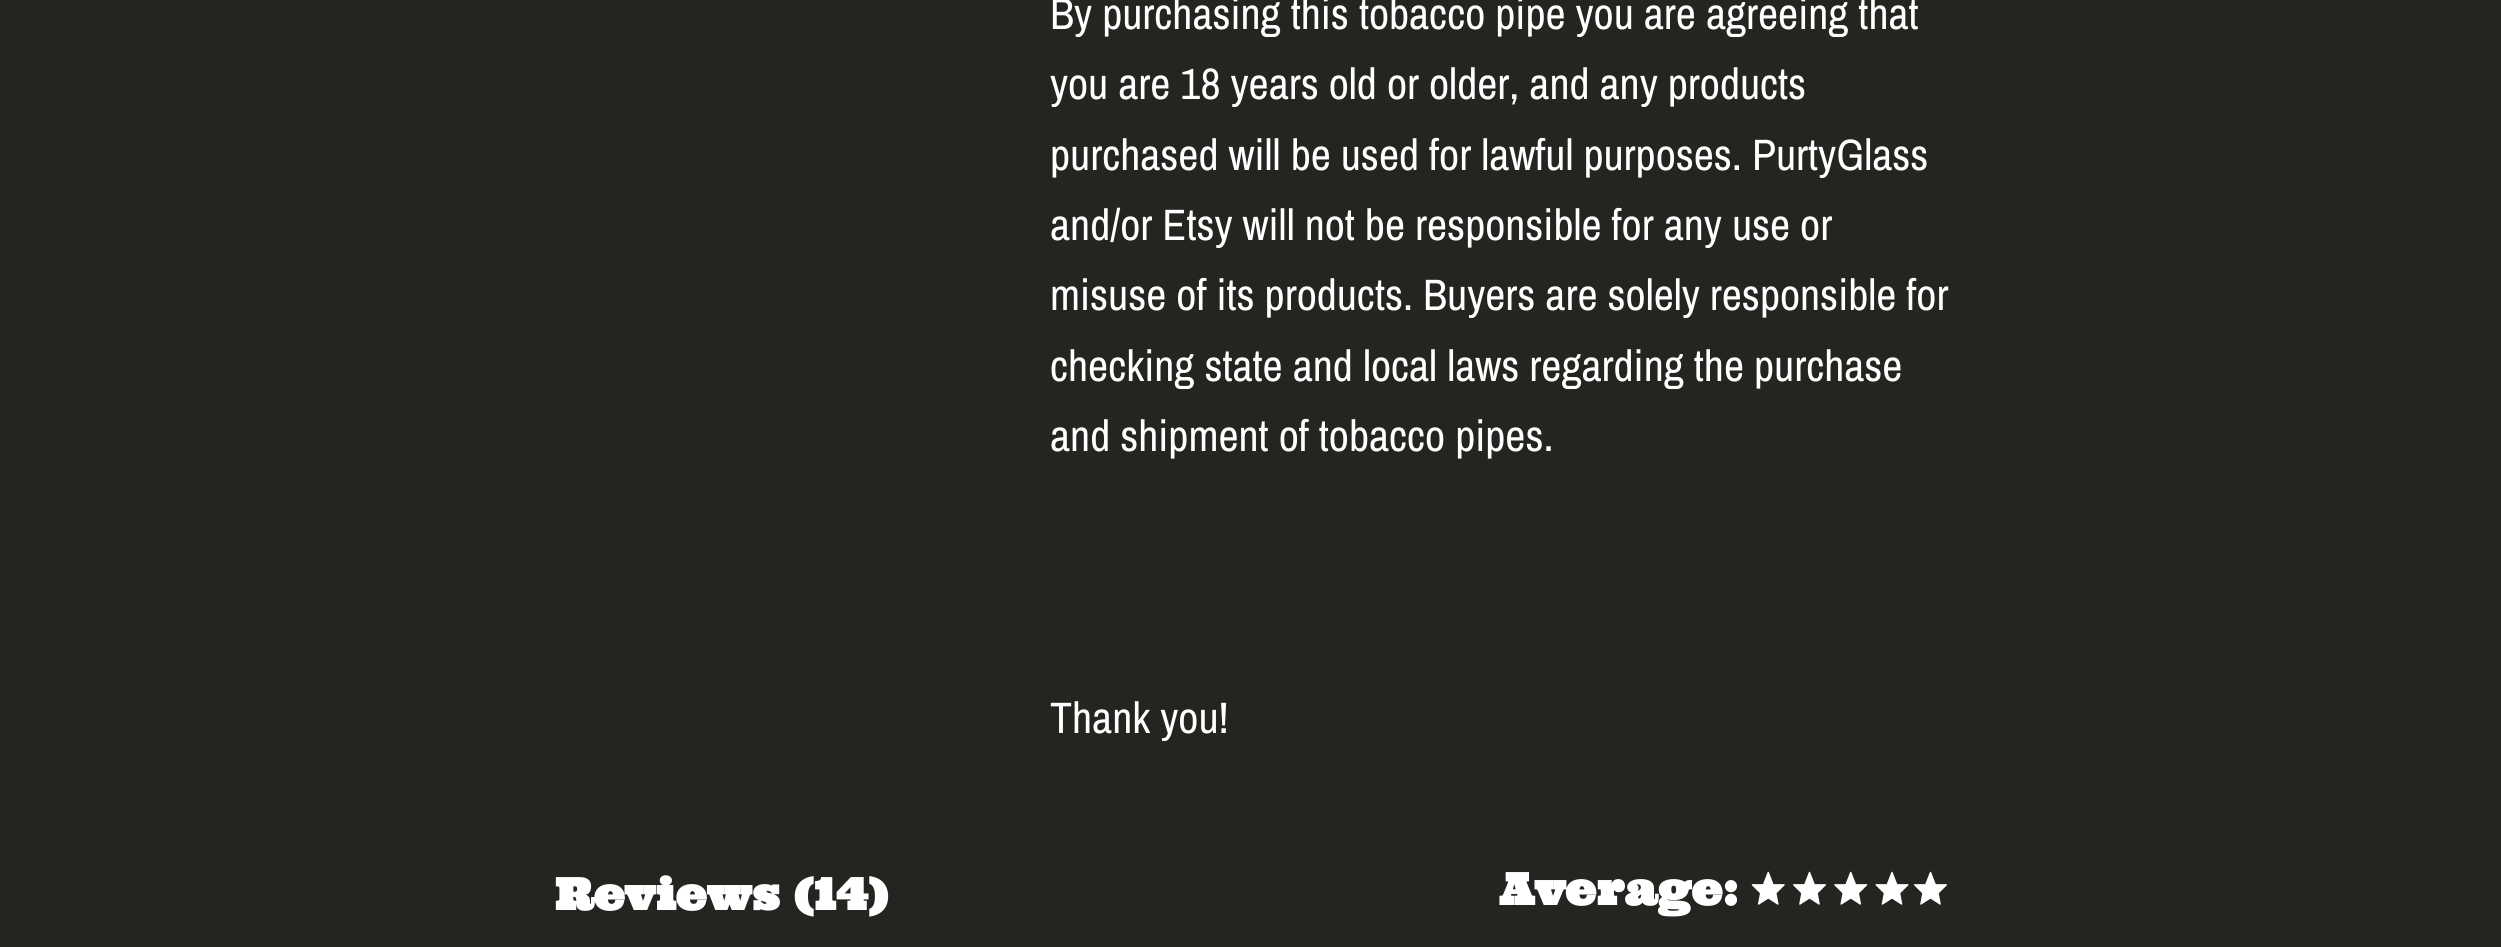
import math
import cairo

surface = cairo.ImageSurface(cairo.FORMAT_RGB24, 2501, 947)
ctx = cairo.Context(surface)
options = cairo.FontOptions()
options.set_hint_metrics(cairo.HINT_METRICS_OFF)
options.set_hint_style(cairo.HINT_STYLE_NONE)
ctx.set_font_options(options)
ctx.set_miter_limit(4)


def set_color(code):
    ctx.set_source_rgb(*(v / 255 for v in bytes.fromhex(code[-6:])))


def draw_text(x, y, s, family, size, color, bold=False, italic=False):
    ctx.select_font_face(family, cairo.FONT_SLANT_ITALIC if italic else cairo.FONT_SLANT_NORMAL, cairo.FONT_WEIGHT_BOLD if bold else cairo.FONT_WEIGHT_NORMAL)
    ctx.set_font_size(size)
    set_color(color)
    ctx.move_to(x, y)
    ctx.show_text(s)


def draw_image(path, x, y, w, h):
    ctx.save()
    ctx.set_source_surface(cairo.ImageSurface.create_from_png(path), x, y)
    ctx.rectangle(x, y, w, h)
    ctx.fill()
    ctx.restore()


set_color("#232521")
ctx.paint()
draw_text(1050, 29, "By purchasing this tobacco pipe you are agreeing that", "Archivo Narrow", 44, "#ffffff")
draw_text(1050, 99, "you are 18 years old or older, and any products", "Archivo Narrow", 44, "#ffffff")
draw_text(1050, 170, "purchased will be used for lawful purposes. PurtyGlass", "Archivo Narrow", 44, "#ffffff")
draw_text(1050, 240, "and/or Etsy will not be responsible for any use or", "Archivo Narrow", 44, "#ffffff")
draw_text(1050, 310, "misuse of its products. Buyers are solely responsible for", "Archivo Narrow", 44, "#ffffff")
draw_text(1050, 381, "checking state and local laws regarding the purchase", "Archivo Narrow", 44, "#ffffff")
draw_text(1050, 451, "and shipment of tobacco pipes.", "Archivo Narrow", 44, "#ffffff")
draw_text(1050, 733, "Thank you!", "Archivo Narrow", 44, "#ffffff")
draw_text(555, 910, "Reviews (14)", "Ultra", 44, "#ffffff", bold=True)
draw_text(1499, 905, "Average:", "Ultra", 44, "#ffffff", bold=True)
draw_image("assets/img1.png", 1751, 871, 34, 34)
draw_image("assets/img2.png", 1793, 871, 33, 34)
draw_image("assets/img3.png", 1834, 871, 34, 34)
draw_image("assets/img4.png", 1875, 871, 34, 34)
draw_image("assets/img2.png", 1914, 871, 33, 34)
surface.write_to_png("output.png")
